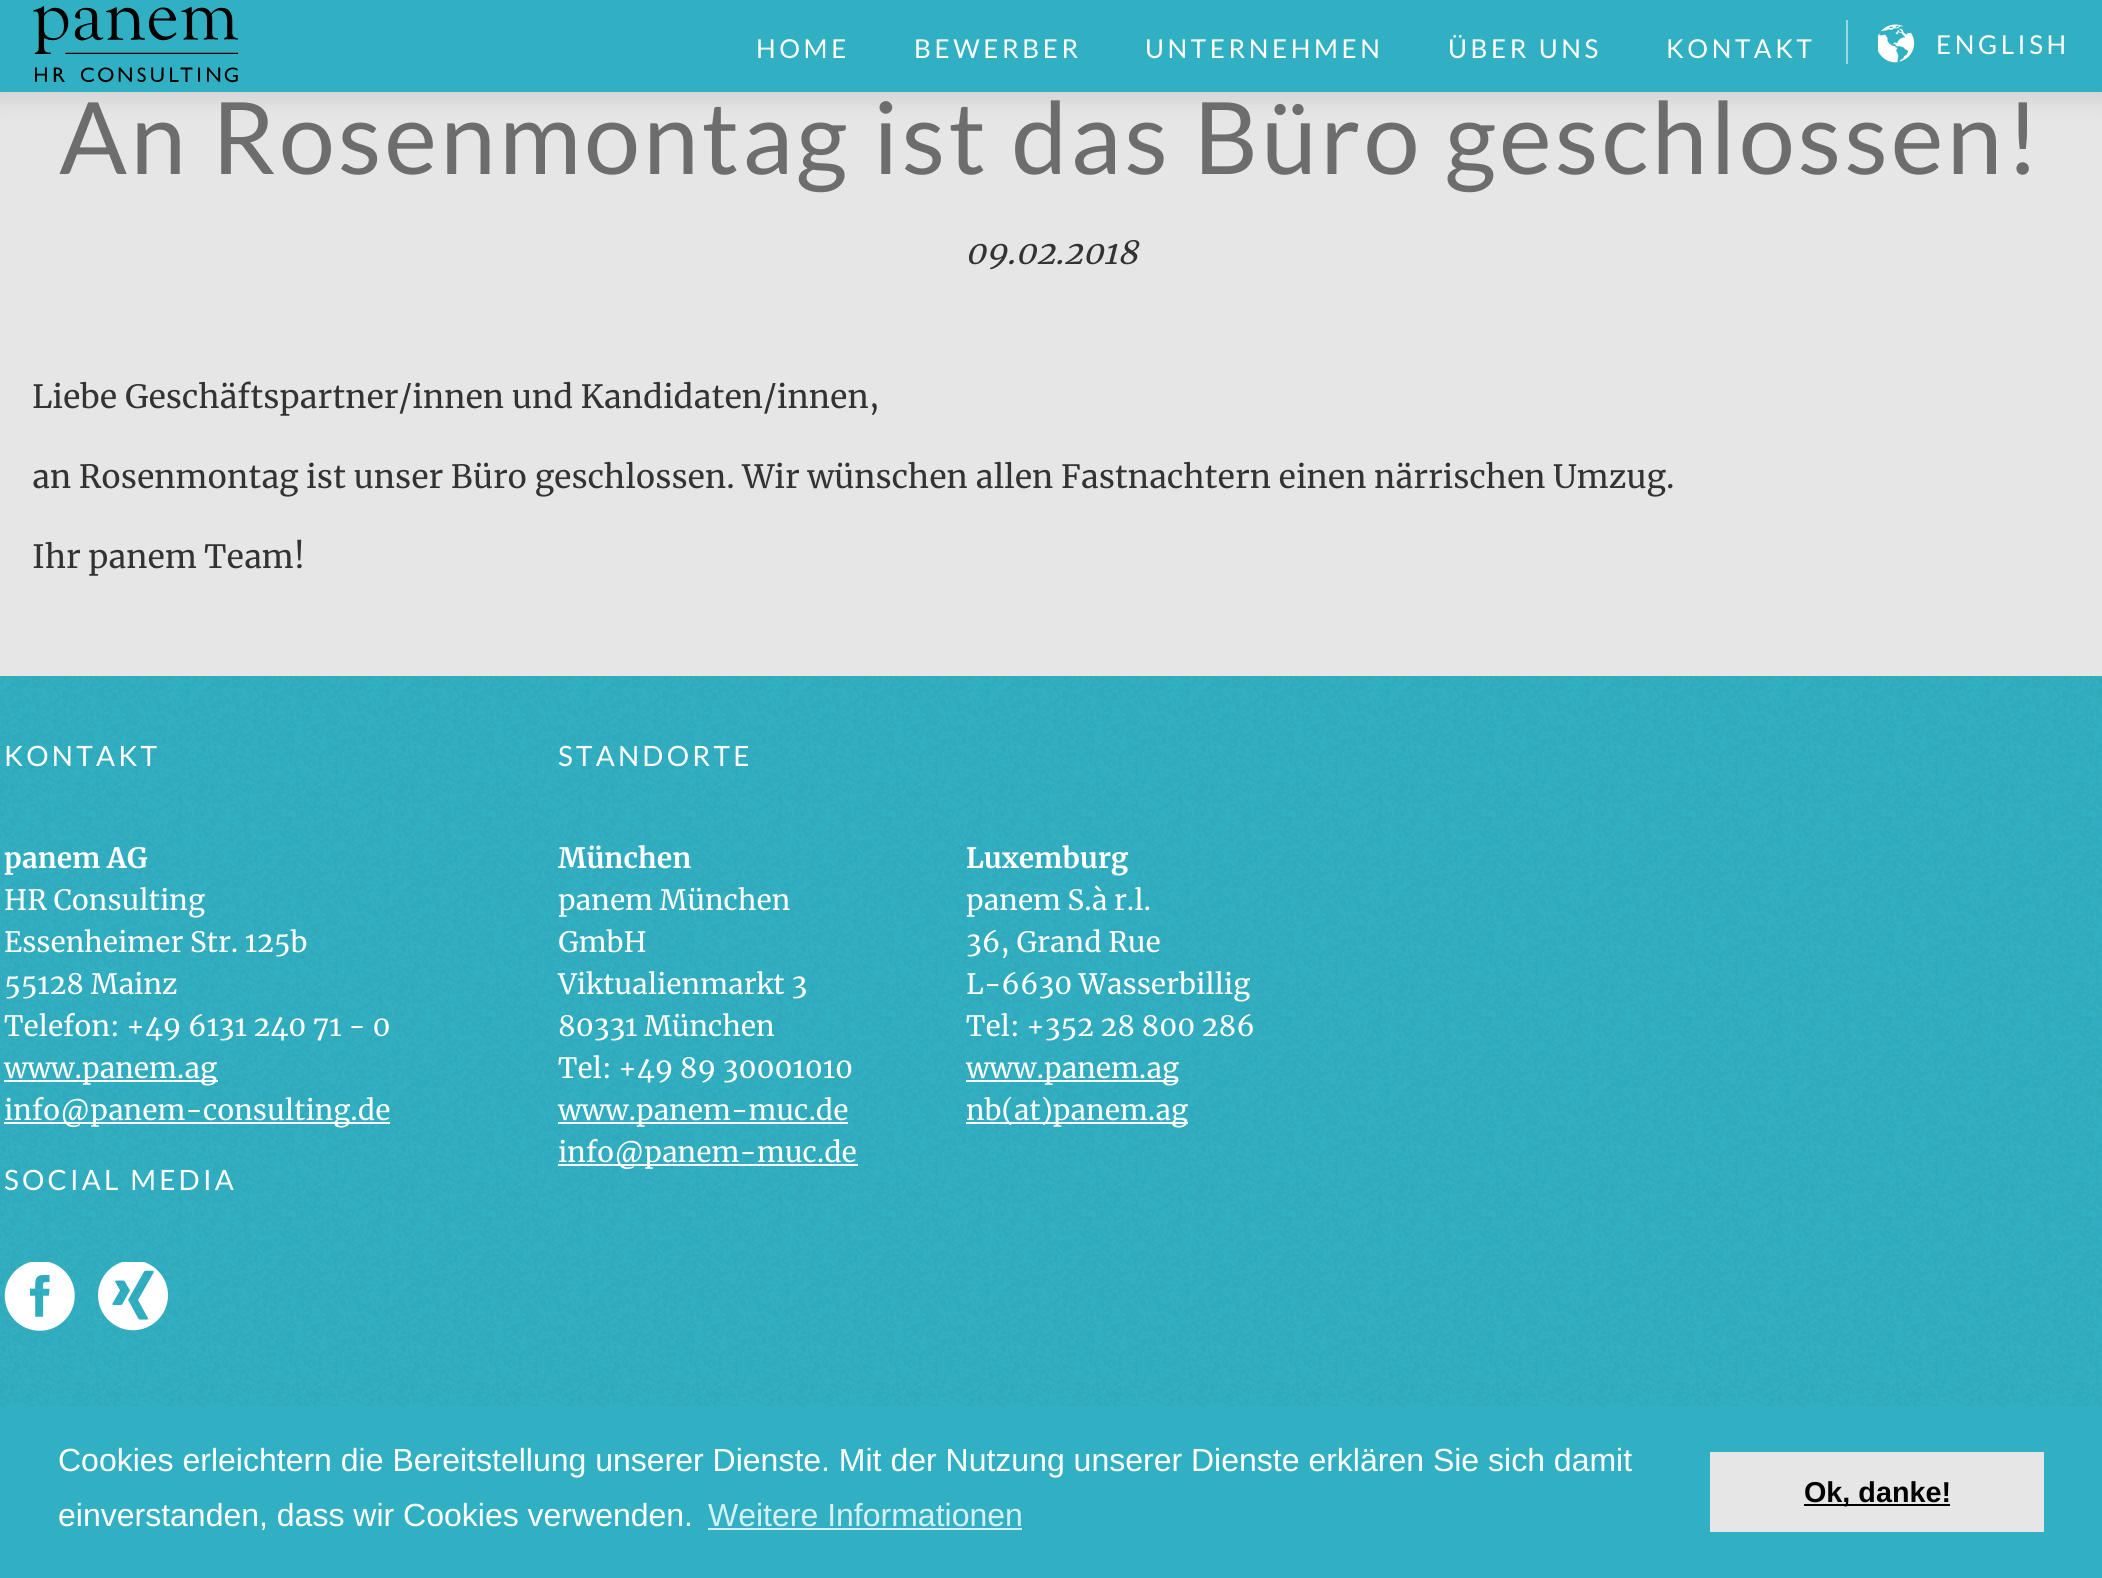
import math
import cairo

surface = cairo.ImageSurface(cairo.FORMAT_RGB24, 2102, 1578)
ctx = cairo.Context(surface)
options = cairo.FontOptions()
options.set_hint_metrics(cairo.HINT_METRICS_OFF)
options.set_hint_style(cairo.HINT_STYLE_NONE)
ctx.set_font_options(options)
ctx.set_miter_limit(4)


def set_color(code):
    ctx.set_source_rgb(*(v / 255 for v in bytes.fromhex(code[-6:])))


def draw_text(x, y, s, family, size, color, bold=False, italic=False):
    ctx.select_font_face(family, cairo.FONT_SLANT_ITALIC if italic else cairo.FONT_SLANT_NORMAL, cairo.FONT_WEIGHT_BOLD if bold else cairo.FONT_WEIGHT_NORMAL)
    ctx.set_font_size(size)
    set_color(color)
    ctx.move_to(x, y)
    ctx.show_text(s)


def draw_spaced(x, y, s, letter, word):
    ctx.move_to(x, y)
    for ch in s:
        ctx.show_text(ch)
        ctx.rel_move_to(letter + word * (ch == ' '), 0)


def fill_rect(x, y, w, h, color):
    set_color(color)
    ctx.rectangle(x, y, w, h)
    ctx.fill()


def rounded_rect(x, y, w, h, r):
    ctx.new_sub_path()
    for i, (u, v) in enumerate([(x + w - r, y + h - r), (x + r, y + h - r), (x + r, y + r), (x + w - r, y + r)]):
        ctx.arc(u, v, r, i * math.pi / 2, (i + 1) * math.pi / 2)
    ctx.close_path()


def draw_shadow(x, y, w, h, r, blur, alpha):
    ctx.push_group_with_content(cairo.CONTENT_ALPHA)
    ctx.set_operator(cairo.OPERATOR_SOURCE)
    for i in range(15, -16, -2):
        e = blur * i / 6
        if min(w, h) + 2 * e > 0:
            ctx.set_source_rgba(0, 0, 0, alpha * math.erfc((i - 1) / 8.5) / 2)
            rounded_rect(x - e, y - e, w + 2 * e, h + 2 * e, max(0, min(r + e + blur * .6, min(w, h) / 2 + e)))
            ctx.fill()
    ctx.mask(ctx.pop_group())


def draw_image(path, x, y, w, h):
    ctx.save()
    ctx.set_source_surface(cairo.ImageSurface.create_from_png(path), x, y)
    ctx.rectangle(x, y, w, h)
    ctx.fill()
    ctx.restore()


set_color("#e6e6e6")
ctx.paint()
set_color("#333333")
draw_shadow(-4, 0, 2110, 100, 0, 11, 0.12)
fill_rect(0, 0, 2102, 92, "#32b0c3")
draw_image("assets/img1.png", 33, 6, 205, 77)
ctx.select_font_face("Lato")
ctx.set_font_size(26)
set_color("#ffffff")
draw_spaced(756, 58, "HOME", 3.6, 0)
draw_spaced(914, 58, "BEWERBER", 3.6, 0)
draw_spaced(1145, 58, "UNTERNEHMEN", 3.6, 0)
draw_spaced(1448, 58, "ÜBER UNS", 3.6, 0)
draw_spaced(1666, 58, "KONTAKT", 3.6, 0)
fill_rect(1846, 20, 2, 44, "#99d8e1")
draw_image("assets/img2.png", 1878, 24, 37, 39)
set_color("#ffffff")
draw_spaced(1936, 54, "ENGLISH", 3.6, 0)
ctx.set_font_size(100)
set_color("#6d6d6d")
draw_spaced(59, 174, "An Rosenmontag ist das Büro geschlossen!", 3.2, 0)
draw_text(965, 264, "09.02.2018", "Merriweather", 32, "#333333", italic=True)
draw_text(32, 408, "Liebe Geschäftspartner/innen und Kandidaten/innen,", "Merriweather", 32, "#333333")
draw_text(32, 488, "an Rosenmontag ist unser Büro geschlossen. Wir wünschen allen Fastnachtern einen närrischen Umzug.", "Merriweather", 32, "#333333")
draw_text(32, 568, "Ihr panem Team!", "Merriweather", 32, "#333333")
fill_rect(0, 676, 2102, 902, "#32b0c3")
draw_image("assets/img3.png", 0, 676, 2102, 730)
ctx.select_font_face("Lato")
ctx.set_font_size(28)
set_color("#ffffff")
draw_spaced(4, 766, "KONTAKT", 3.2, 0)
draw_text(4, 868, "panem AG", "Merriweather", 28, "#ffffff", bold=True)
draw_text(4, 910, "HR Consulting", "Merriweather", 28, "#ffffff")
draw_text(4, 952, "Essenheimer Str. 125b", "Merriweather", 28, "#ffffff")
draw_text(4, 994, "55128 Mainz", "Merriweather", 28, "#ffffff")
draw_text(4, 1036, "Telefon: +49 6131 240 71 - 0", "Merriweather", 28, "#ffffff")
fill_rect(4, 1080, 214, 2, "#ffffff")
draw_text(4, 1078, "www.panem.ag", "Merriweather", 28, "#ffffff")
fill_rect(4, 1122, 386, 2, "#ffffff")
draw_text(4, 1120, "info@panem-consulting.de", "Merriweather", 28, "#ffffff")
ctx.select_font_face("Lato")
draw_spaced(4, 1190, "SOCIAL MEDIA", 3.2, 0)
draw_image("assets/img4.png", 4, 1262, 71, 69)
draw_image("assets/img5.png", 98, 1262, 70, 69)
draw_spaced(558, 766, "STANDORTE", 3.2, 0)
draw_text(558, 868, "München", "Merriweather", 28, "#ffffff", bold=True)
draw_text(558, 910, "panem München", "Merriweather", 28, "#ffffff")
draw_text(558, 952, "GmbH", "Merriweather", 28, "#ffffff")
draw_text(558, 994, "Viktualienmarkt 3", "Merriweather", 28, "#ffffff")
draw_text(558, 1036, "80331 München", "Merriweather", 28, "#ffffff")
draw_text(558, 1078, "Tel: +49 89 30001010", "Merriweather", 28, "#ffffff")
fill_rect(558, 1122, 290, 2, "#ffffff")
draw_text(558, 1120, "www.panem-muc.de", "Merriweather", 28, "#ffffff")
fill_rect(558, 1164, 300, 2, "#ffffff")
draw_text(558, 1162, "info@panem-muc.de", "Merriweather", 28, "#ffffff")
draw_text(966, 868, "Luxemburg", "Merriweather", 28, "#ffffff", bold=True)
draw_text(966, 910, "panem S.à r.l.", "Merriweather", 28, "#ffffff")
draw_text(966, 952, "36, Grand Rue", "Merriweather", 28, "#ffffff")
draw_text(966, 994, "L-6630 Wasserbillig", "Merriweather", 28, "#ffffff")
draw_text(966, 1036, "Tel: +352 28 800 286", "Merriweather", 28, "#ffffff")
fill_rect(966, 1080, 212, 2, "#ffffff")
draw_text(966, 1078, "www.panem.ag", "Merriweather", 28, "#ffffff")
fill_rect(966, 1122, 222, 2, "#ffffff")
draw_text(966, 1120, "nb(at)panem.ag", "Merriweather", 28, "#ffffff")
draw_text(58, 1471, "Cookies erleichtern die Bereitstellung unserer Dienste. Mit der Nutzung unserer Dienste erklären Sie sich damit", "Liberation Sans", 32, "#ffffff")
draw_text(58, 1526, "einverstanden, dass wir Cookies verwenden.", "Liberation Sans", 32, "#ffffff")
draw_text(708, 1526, "Weitere Informationen", "Liberation Sans", 32, "#d6eff3")
fill_rect(708, 1528, 314, 2, "#d6eff3")
fill_rect(1710, 1452, 334, 80, "#e6e6e6")
fill_rect(1804, 1504, 146, 2, "#000000")
draw_text(1804, 1502, "Ok, danke!", "Liberation Sans", 28.75, "#000000", bold=True)
surface.write_to_png("output.png")
